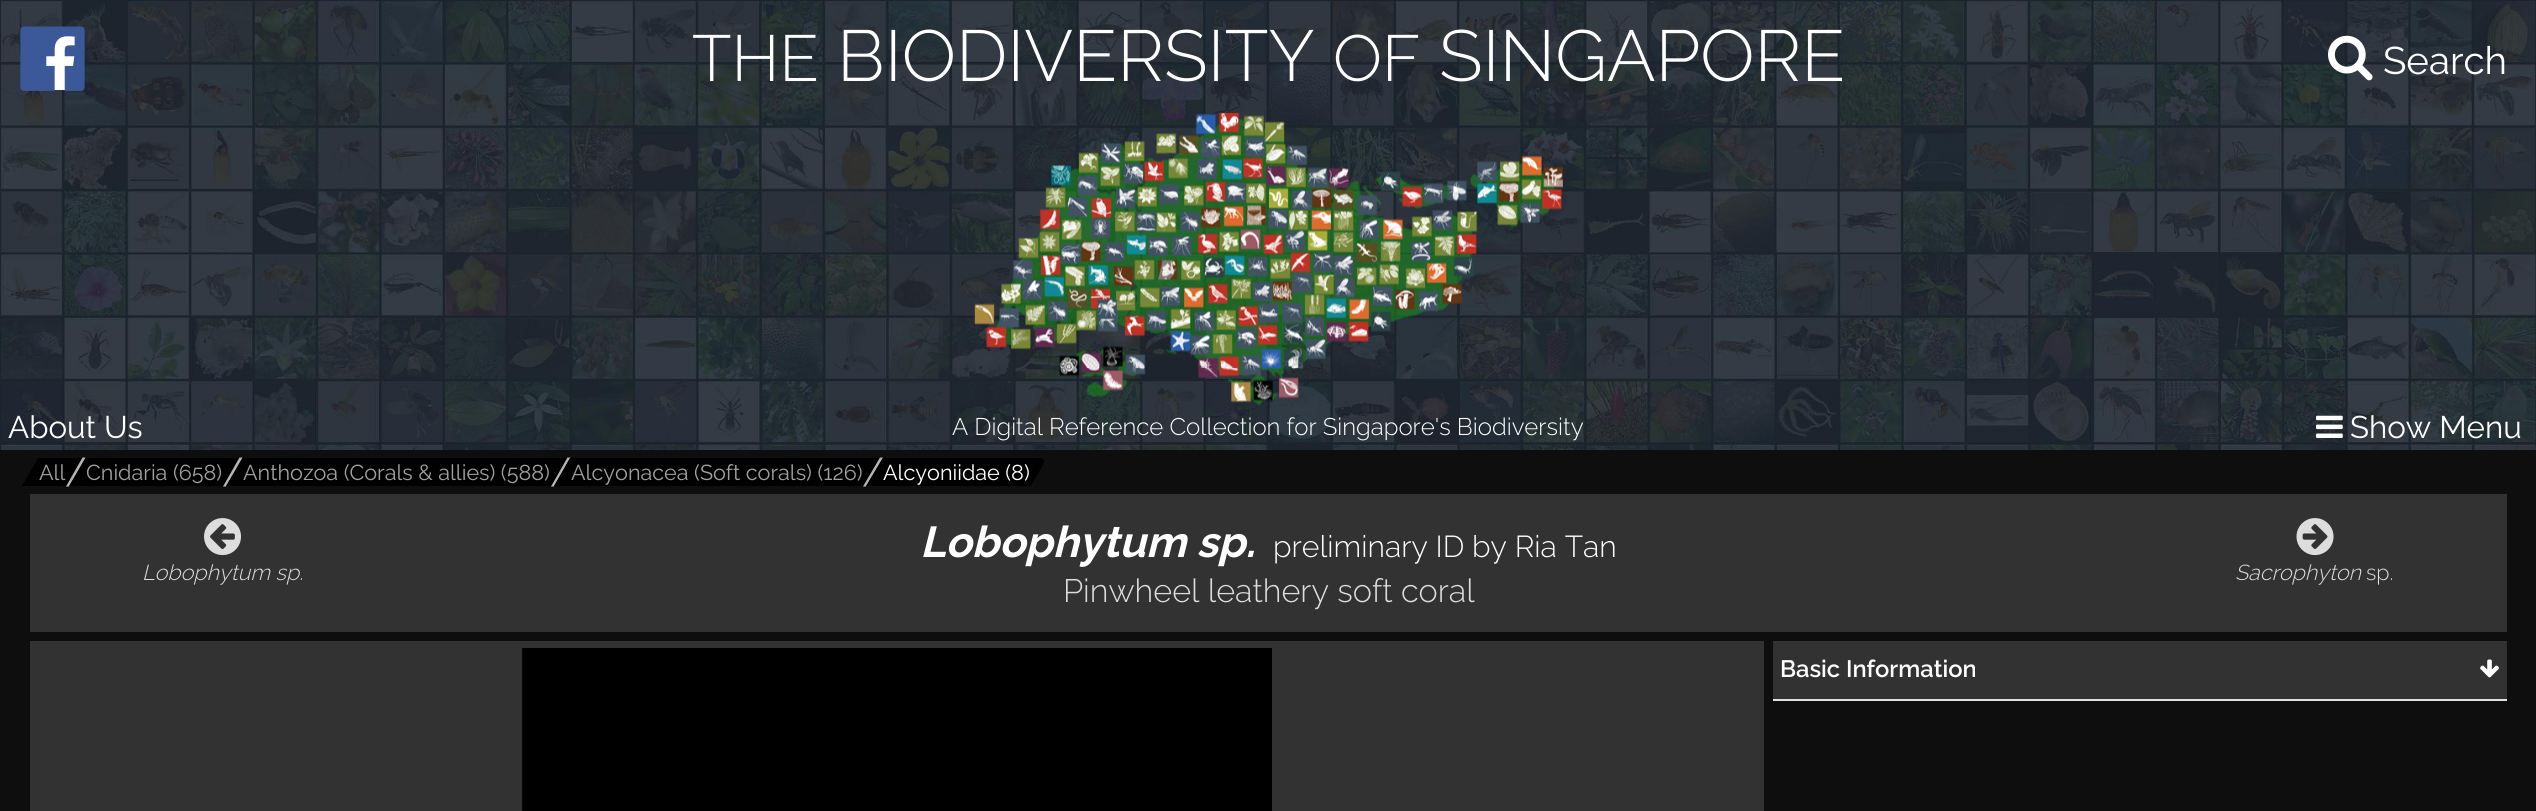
import math
import cairo

surface = cairo.ImageSurface(cairo.FORMAT_RGB24, 2536, 811)
ctx = cairo.Context(surface)
options = cairo.FontOptions()
options.set_hint_metrics(cairo.HINT_METRICS_OFF)
options.set_hint_style(cairo.HINT_STYLE_NONE)
ctx.set_font_options(options)
ctx.set_miter_limit(4)


def set_color(code):
    ctx.set_source_rgb(*(v / 255 for v in bytes.fromhex(code[-6:])))


def draw_text(x, y, s, family, size, color, bold=False, italic=False):
    ctx.select_font_face(family, cairo.FONT_SLANT_ITALIC if italic else cairo.FONT_SLANT_NORMAL, cairo.FONT_WEIGHT_BOLD if bold else cairo.FONT_WEIGHT_NORMAL)
    ctx.set_font_size(size)
    set_color(color)
    ctx.move_to(x, y)
    ctx.show_text(s)


def fill_rect(x, y, w, h, color):
    set_color(color)
    ctx.rectangle(x, y, w, h)
    ctx.fill()


def draw_image(path, x, y, w, h):
    ctx.save()
    ctx.set_source_surface(cairo.ImageSurface.create_from_png(path), x, y)
    ctx.rectangle(x, y, w, h)
    ctx.fill()
    ctx.restore()


set_color("#0e0e0e")
ctx.paint()
draw_image("assets/img1.png", 0, 0, 2536, 450)
fill_rect(46, 27, 37, 63, "#ffffff")
draw_image("assets/img2.png", 20, 26, 65, 65)
draw_text(692, 81, "THE", "Raleway Light", 65, "#ffffff")
draw_text(837, 81, "BIODIVERSITY", "Raleway Light", 72, "#ffffff")
draw_text(1333, 81, "OF", "Raleway Light", 65, "#ffffff")
draw_text(1439, 81, "SINGAPORE", "Raleway Light", 72, "#ffffff")
draw_image("assets/img3.png", 2328, 35, 45, 46)
draw_text(2383, 74, "Search", "Raleway", 38.5, "#ffffff")
draw_image("assets/img4.png", 974, 113, 589, 293)
draw_text(8, 438, "About Us", "Raleway", 31.25, "#ffffff")
draw_text(952, 435, "A Digital Reference Collection for Singapore's Biodiversity", "Raleway Light", 24, "#ffffff")
draw_image("assets/img5.png", 2316, 415, 27, 23)
draw_text(2350, 438, "Show Menu", "Raleway", 31.25, "#ffffff")
set_color("#000000")
ctx.new_path()
ctx.move_to(38, 458)
ctx.line_to(86, 458)
ctx.line_to(69, 486)
ctx.line_to(22, 486)
ctx.close_path()
ctx.fill()
set_color("#b5b5b5")
ctx.new_path()
ctx.move_to(82.5, 457.5)
ctx.line_to(85.5, 457.5)
ctx.line_to(69, 486.5)
ctx.line_to(66, 486.5)
ctx.close_path()
ctx.fill()
draw_text(39, 480, "All", "Raleway", 21.6, "#a0a0a0")
set_color("#000000")
ctx.new_path()
ctx.move_to(86, 458)
ctx.line_to(243, 458)
ctx.line_to(226, 486)
ctx.line_to(69, 486)
ctx.close_path()
ctx.fill()
set_color("#b5b5b5")
ctx.new_path()
ctx.move_to(239.5, 457.5)
ctx.line_to(242.5, 457.5)
ctx.line_to(226, 486.5)
ctx.line_to(223, 486.5)
ctx.close_path()
ctx.fill()
draw_text(86, 480, "Cnidaria (658)", "Raleway", 21.6, "#a0a0a0")
set_color("#000000")
ctx.new_path()
ctx.move_to(243, 458)
ctx.line_to(570, 458)
ctx.line_to(554, 486)
ctx.line_to(226, 486)
ctx.close_path()
ctx.fill()
set_color("#b5b5b5")
ctx.new_path()
ctx.move_to(567.5, 457.5)
ctx.line_to(570.5, 457.5)
ctx.line_to(554, 486.5)
ctx.line_to(551, 486.5)
ctx.close_path()
ctx.fill()
draw_text(243, 480, "Anthozoa (Corals & allies) (588)", "Raleway", 21.6, "#a0a0a0")
set_color("#000000")
ctx.new_path()
ctx.move_to(570, 458)
ctx.line_to(883, 458)
ctx.line_to(866, 486)
ctx.line_to(554, 486)
ctx.close_path()
ctx.fill()
set_color("#b5b5b5")
ctx.new_path()
ctx.move_to(880, 457.5)
ctx.line_to(883, 457.5)
ctx.line_to(866, 486.5)
ctx.line_to(863, 486.5)
ctx.close_path()
ctx.fill()
draw_text(571, 480, "Alcyonacea (Soft corals) (126)", "Raleway", 21.6, "#a0a0a0")
set_color("#000000")
ctx.new_path()
ctx.move_to(883, 458)
ctx.line_to(1040, 458)
ctx.curve_to(1044, 458, 1045, 461, 1043, 465)
ctx.line_to(1031, 486)
ctx.line_to(866, 486)
ctx.close_path()
ctx.fill()
draw_text(883, 480, "Alcyoniidae (8)", "Raleway", 21.6, "#ffffff")
fill_rect(30, 494, 2477, 138, "#323232")
draw_image("assets/img6.png", 204, 518, 37, 38)
draw_text(142, 580, "Lobophytum sp.", "Raleway Light", 21.6, "#dddddd", italic=True)
draw_text(920, 557, "Lobophytum sp.", "Raleway", 43.25, "#ffffff", bold=True, italic=True)
draw_text(1273, 557, "preliminary ID by Ria Tan", "Raleway Light", 30.25, "#ffffff")
draw_text(1063, 602, "Pinwheel leathery soft coral", "Raleway Light", 32.4, "#dddddd")
draw_image("assets/img7.png", 2296, 518, 38, 38)
draw_text(2235, 580, "Sacrophyton", "Raleway Light", 21.6, "#dddddd", italic=True)
draw_text(2366, 580, "sp.", "Raleway Light", 21.6, "#dddddd")
fill_rect(30, 641, 1734, 170, "#323232")
draw_image("assets/img8.png", 521, 648, 751, 163)
fill_rect(1773, 641, 734, 58, "#323232")
fill_rect(1773, 699, 734, 2, "#e1e1e1")
draw_text(1780, 677, "Basic Information", "Raleway SemiBold", 23.75, "#ffffff")
draw_image("assets/img9.png", 2480, 659, 19, 19)
surface.write_to_png("output.png")
